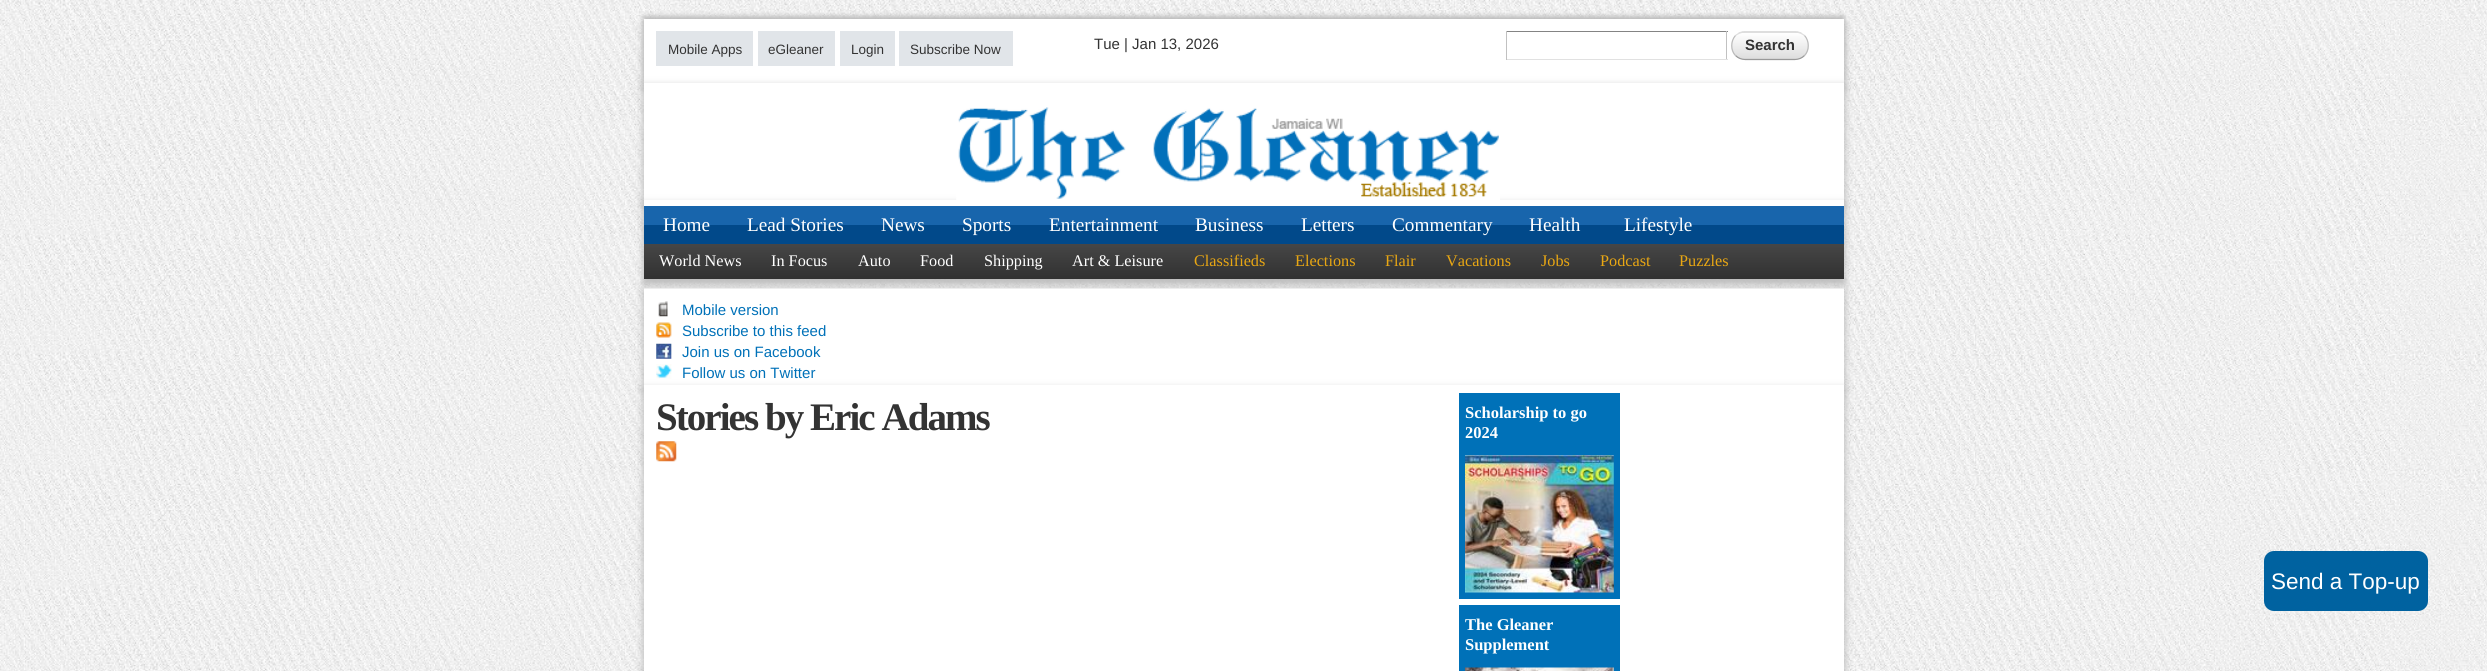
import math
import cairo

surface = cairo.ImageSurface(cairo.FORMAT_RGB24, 2487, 671)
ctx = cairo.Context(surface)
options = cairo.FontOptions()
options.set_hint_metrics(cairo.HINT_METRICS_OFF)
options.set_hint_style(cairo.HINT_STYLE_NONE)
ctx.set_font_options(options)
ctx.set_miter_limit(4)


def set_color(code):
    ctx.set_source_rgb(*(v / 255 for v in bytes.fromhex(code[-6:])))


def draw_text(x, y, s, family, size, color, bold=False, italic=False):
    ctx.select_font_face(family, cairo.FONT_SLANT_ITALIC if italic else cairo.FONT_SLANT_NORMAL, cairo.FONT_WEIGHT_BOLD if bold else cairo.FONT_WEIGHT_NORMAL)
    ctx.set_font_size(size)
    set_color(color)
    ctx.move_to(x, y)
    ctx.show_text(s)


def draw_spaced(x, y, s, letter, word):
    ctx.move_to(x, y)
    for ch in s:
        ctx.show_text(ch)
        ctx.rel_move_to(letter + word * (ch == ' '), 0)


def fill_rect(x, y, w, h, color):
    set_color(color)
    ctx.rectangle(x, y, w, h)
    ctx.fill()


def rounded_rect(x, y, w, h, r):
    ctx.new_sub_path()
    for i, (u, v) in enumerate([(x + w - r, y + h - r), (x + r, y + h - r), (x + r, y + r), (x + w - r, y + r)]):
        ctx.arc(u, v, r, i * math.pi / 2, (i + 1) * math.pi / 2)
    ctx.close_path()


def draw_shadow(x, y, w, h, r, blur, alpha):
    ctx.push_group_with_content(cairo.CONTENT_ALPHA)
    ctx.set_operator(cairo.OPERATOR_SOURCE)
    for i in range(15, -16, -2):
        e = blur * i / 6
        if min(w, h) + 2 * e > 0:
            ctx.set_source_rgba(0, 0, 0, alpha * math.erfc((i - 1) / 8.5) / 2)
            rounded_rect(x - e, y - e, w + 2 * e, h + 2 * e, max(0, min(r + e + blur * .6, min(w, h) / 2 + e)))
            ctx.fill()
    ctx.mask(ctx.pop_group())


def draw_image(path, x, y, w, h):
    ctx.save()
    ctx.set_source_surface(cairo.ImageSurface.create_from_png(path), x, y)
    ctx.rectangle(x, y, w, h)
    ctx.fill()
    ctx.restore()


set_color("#ffffff")
ctx.paint()
draw_image("assets/img1.png", 0, 0, 2487, 671)
set_color("#bbbbbb")
draw_shadow(643, 23, 1202, 66, 0, 4, 1)
draw_shadow(644, 16, 1200, 64, 0, 2.5, 1)
fill_rect(644, 19, 1200, 64, "#ffffff")
fill_rect(656, 31, 97, 35, "#e1e5e9")
draw_text(668, 54, "Mobile Apps", "Liberation Sans", 13.5, "#333333")
fill_rect(758, 31, 77, 35, "#e1e5e9")
draw_text(768, 54, "eGleaner", "Liberation Sans", 13.5, "#333333")
fill_rect(840, 31, 55, 35, "#e1e5e9")
draw_text(851, 54, "Login", "Liberation Sans", 13.5, "#333333")
fill_rect(899, 31, 114, 35, "#e1e5e9")
draw_text(910, 54, "Subscribe Now", "Liberation Sans", 13.5, "#333333")
draw_text(1094, 49, "Tue | Jan 13, 2026", "Liberation Sans", 15, "#333333")
fill_rect(1506, 31, 222, 1, "#848484")
fill_rect(1726, 31, 1, 29, "#c1c1c1")
fill_rect(1506, 59, 222, 1, "#e1e1e1")
fill_rect(1506, 31, 1, 29, "#c1c1c1")
ctx.save()
rounded_rect(1731, 31, 78, 29, 14)
ctx.clip()
gradient = cairo.LinearGradient(1733, 6.2, 1733, 33)
gradient.add_color_stop_rgba(0, 1, 1, 1, 1)
gradient.add_color_stop_rgba(1, 0.867, 0.867, 0.867, 1)
ctx.set_source(gradient)
ctx.rectangle(1731, 31, 78, 2)
ctx.fill()
gradient = cairo.LinearGradient(1733, 33, 1733, 59)
gradient.add_color_stop_rgba(0, 1, 1, 1, 1)
gradient.add_color_stop_rgba(1, 0.867, 0.867, 0.867, 1)
ctx.set_source(gradient)
ctx.rectangle(1731, 33, 78, 26)
ctx.fill()
ctx.restore()
ctx.new_path()
ctx.move_to(1735.5, 35.5)
ctx.curve_to(1738, 33.5, 1741.5, 32, 1745, 32)
ctx.line_to(1795, 32)
ctx.curve_to(1798.5, 32, 1802, 33.5, 1804.5, 35.5)
set_color("#dddddd")
ctx.set_line_width(1.2)
ctx.stroke()
ctx.new_path()
ctx.move_to(1804.5, 35.5)
ctx.curve_to(1809.5, 41, 1809.5, 50.5, 1804.5, 55.5)
set_color("#bbbbbb")
ctx.stroke()
ctx.new_path()
ctx.move_to(1804.5, 55.5)
ctx.curve_to(1802, 58, 1798.5, 59.5, 1795, 59.5)
ctx.line_to(1745, 59.5)
ctx.curve_to(1741.5, 59.5, 1738, 58, 1735.5, 55.5)
set_color("#999999")
ctx.stroke()
ctx.new_path()
ctx.move_to(1735.5, 55.5)
ctx.curve_to(1730.5, 50.5, 1730.5, 41, 1735.5, 35.5)
set_color("#bbbbbb")
ctx.stroke()
draw_text(1745, 50, "Search", "Liberation Sans", 15, "#333333", bold=True)
set_color("#bbbbbb")
draw_shadow(643, 86, 1202, 120, 0, 4, 1)
fill_rect(644, 83, 1200, 117, "#ffffff")
set_color("#bbbbbb")
draw_shadow(643, 204, 1202, 81, 0, 4, 1)
draw_image("assets/img2.png", 956, 107, 544, 93)
fill_rect(644, 200, 1200, 6, "#ffffff")
fill_rect(644, 206, 1200, 19, "#1865ac")
fill_rect(644, 225, 1200, 19, "#01498a")
draw_text(663, 231, "Home", "Liberation Serif", 19.25, "#ffffff")
draw_text(747, 231, "Lead Stories", "Liberation Serif", 19.25, "#ffffff")
draw_text(881, 231, "News", "Liberation Serif", 19.25, "#ffffff")
draw_text(962, 231, "Sports", "Liberation Serif", 19.25, "#ffffff")
draw_text(1049, 231, "Entertainment", "Liberation Serif", 19.25, "#ffffff")
draw_text(1195, 231, "Business", "Liberation Serif", 19.25, "#ffffff")
draw_text(1301, 231, "Letters", "Liberation Serif", 19.25, "#ffffff")
draw_text(1392, 231, "Commentary", "Liberation Serif", 19.25, "#ffffff")
draw_text(1529, 231, "Health", "Liberation Serif", 19.25, "#ffffff")
draw_text(1624, 231, "Lifestyle", "Liberation Serif", 19.25, "#ffffff")
set_color("#bbbbbb")
draw_shadow(643, 291, 1202, 100, 0, 4, 1)
gradient = cairo.LinearGradient(1244, 244, 1244, 279)
gradient.add_color_stop_rgba(0, 0.275, 0.275, 0.275, 1)
gradient.add_color_stop_rgba(1, 0.192, 0.192, 0.192, 1)
ctx.set_source(gradient)
ctx.rectangle(644, 244, 1200, 35)
ctx.fill()
draw_text(659, 266, "World News", "Liberation Serif", 16.25, "#ffffff")
draw_text(771, 266, "In Focus", "Liberation Serif", 16.25, "#ffffff")
draw_text(858, 266, "Auto", "Liberation Serif", 16.25, "#ffffff")
draw_text(920, 266, "Food", "Liberation Serif", 16.25, "#ffffff")
draw_text(984, 266, "Shipping", "Liberation Serif", 16.25, "#ffffff")
draw_text(1072, 266, "Art & Leisure", "Liberation Serif", 16.25, "#ffffff")
draw_text(1194, 266, "Classifieds", "Liberation Serif", 16.25, "#e9a713")
draw_text(1295, 266, "Elections", "Liberation Serif", 16.25, "#e9a713")
draw_text(1385, 266, "Flair", "Liberation Serif", 16.25, "#e9a713")
draw_text(1446, 266, "Vacations", "Liberation Serif", 16.25, "#e9a713")
draw_text(1541, 266, "Jobs", "Liberation Serif", 16.25, "#e9a713")
draw_text(1600, 266, "Podcast", "Liberation Serif", 16.25, "#e9a713")
draw_text(1679, 266, "Puzzles", "Liberation Serif", 16.25, "#e9a713")
fill_rect(644, 288, 1200, 1, "#ededed")
fill_rect(644, 289, 1200, 96, "#ffffff")
draw_image("assets/img3.png", 658, 301, 10, 16)
draw_text(682, 315, "Mobile version", "Liberation Sans", 15, "#0071b8")
draw_image("assets/img4.png", 656, 322, 16, 16)
draw_text(682, 336, "Subscribe to this feed", "Liberation Sans", 15, "#0071b8")
draw_image("assets/img5.png", 656, 343, 16, 16)
draw_text(682, 357, "Join us on Facebook", "Liberation Sans", 15, "#0071b8")
set_color("#bbbbbb")
draw_shadow(643, 389, 1202, 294, 0, 4, 1)
draw_image("assets/img6.png", 656, 364, 16, 15)
draw_text(682, 378, "Follow us on Twitter", "Liberation Sans", 15, "#0071b8")
fill_rect(644, 385, 1200, 286, "#ffffff")
ctx.select_font_face("Liberation Serif", cairo.FONT_SLANT_NORMAL, cairo.FONT_WEIGHT_BOLD)
ctx.set_font_size(39)
set_color("#333333")
draw_spaced(656, 430, "Stories by Eric Adams", -1.95, 0)
draw_image("assets/img7.png", 656, 441, 21, 21)
fill_rect(1459, 393, 161, 206, "#0071b8")
draw_text(1465, 418, "Scholarship to go", "Liberation Serif", 16.5, "#ffffff", bold=True)
draw_text(1465, 438, "2024", "Liberation Serif", 16.5, "#ffffff", bold=True)
draw_image("assets/img8.png", 1465, 455, 149, 138)
fill_rect(1459, 605, 161, 66, "#0071b8")
draw_text(1465, 630, "The Gleaner", "Liberation Serif", 16.5, "#ffffff", bold=True)
draw_text(1465, 650, "Supplement", "Liberation Serif", 16.5, "#ffffff", bold=True)
draw_image("assets/img9.png", 1465, 667, 149, 4)
set_color("#0062a0")
rounded_rect(2264, 551, 164, 60, 10)
ctx.fill()
draw_text(2271, 589, "Send a Top-up", "Liberation Sans", 22.5, "#ffffff")
surface.write_to_png("output.png")
